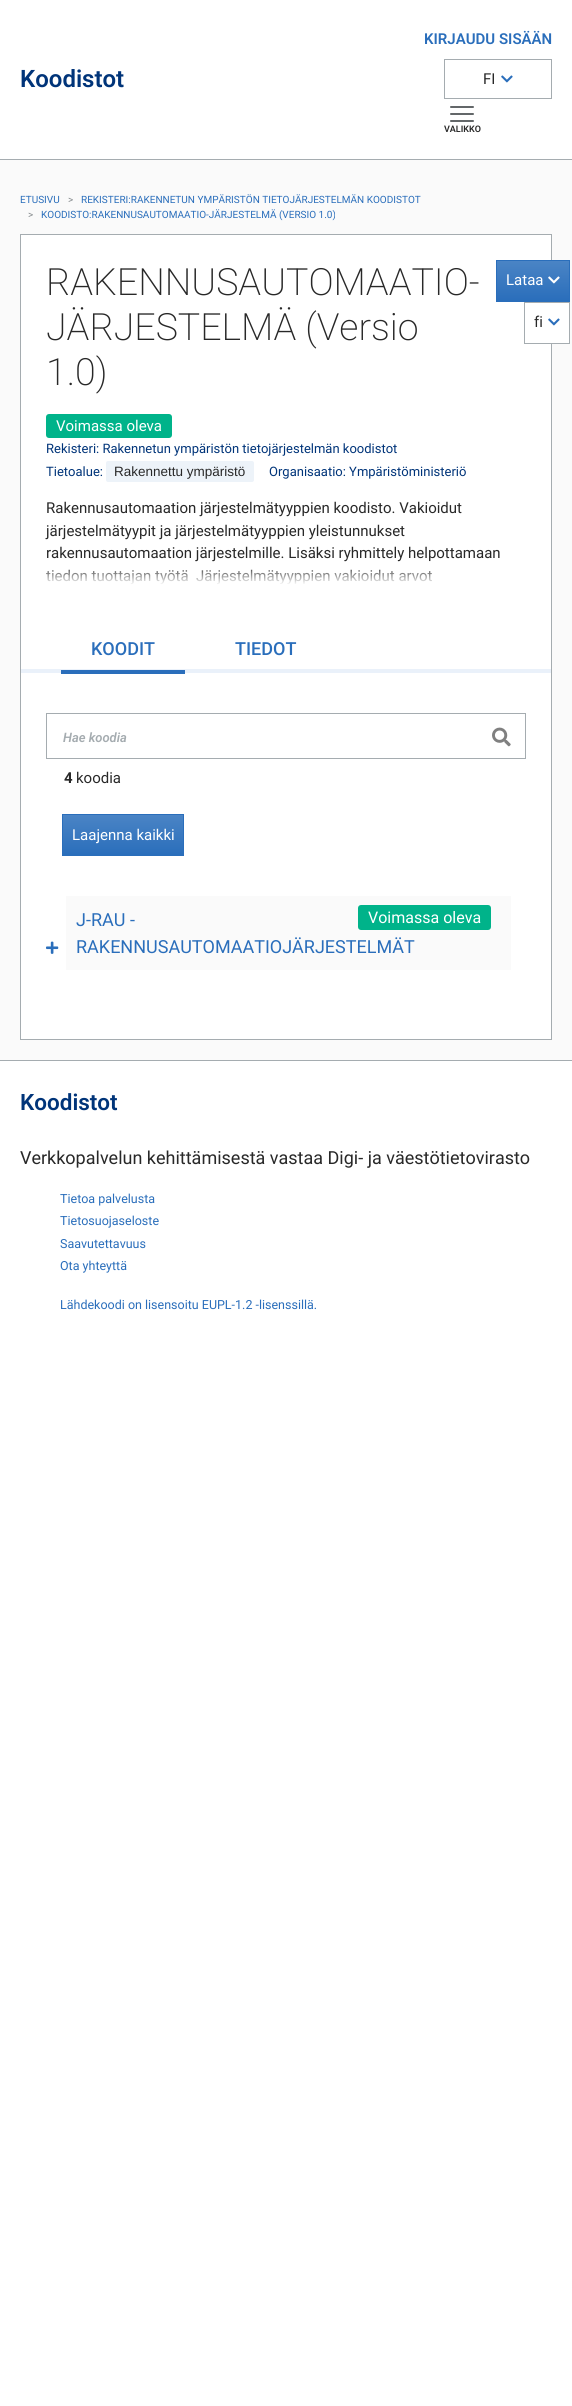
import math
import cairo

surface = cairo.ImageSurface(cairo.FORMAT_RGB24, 572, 2406)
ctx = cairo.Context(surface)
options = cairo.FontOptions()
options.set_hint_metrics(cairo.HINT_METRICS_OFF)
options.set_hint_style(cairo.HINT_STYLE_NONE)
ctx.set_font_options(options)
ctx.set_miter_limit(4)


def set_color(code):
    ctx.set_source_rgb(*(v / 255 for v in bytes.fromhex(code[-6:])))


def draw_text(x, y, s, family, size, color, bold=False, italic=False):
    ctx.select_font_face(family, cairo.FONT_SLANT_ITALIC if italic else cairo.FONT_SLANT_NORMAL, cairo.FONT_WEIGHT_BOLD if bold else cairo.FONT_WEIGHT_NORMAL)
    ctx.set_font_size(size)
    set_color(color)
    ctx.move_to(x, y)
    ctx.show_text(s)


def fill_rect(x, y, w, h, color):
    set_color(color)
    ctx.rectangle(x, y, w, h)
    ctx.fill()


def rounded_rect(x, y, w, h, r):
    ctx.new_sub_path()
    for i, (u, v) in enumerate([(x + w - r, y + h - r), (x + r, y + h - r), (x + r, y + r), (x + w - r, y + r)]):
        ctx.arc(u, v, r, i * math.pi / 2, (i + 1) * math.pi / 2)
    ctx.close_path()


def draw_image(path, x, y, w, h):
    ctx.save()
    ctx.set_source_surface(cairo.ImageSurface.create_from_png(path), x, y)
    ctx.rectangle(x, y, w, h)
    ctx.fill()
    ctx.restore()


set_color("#ffffff")
ctx.paint()
draw_text(20, 87, "Koodistot", "Roboto SemiBold", 24, "#003479")
draw_text(424, 44, "KIRJAUDU SISÄÄN", "Roboto SemiBold", 15, "#2a6ebb")
ctx.rectangle(444.5, 59.5, 107, 39)
set_color("#a5acb0")
ctx.set_line_width(1)
ctx.stroke()
draw_text(483, 84, "FI", "Roboto", 15, "#282828")
draw_image("assets/img1.png", 501, 75, 12, 8)
draw_image("assets/img2.png", 450, 106, 24, 16)
draw_text(444, 132, "VALIKKO", "Roboto SemiBold", 9, "#282828")
fill_rect(0, 160, 572, 900, "#fafafa")
fill_rect(0, 159, 572, 1, "#a5acb0")
draw_text(20, 203, "ETUSIVU", "Roboto", 10, "#2a6ebb")
draw_text(68, 203, ">", "Roboto", 10, "#84898c")
draw_text(81, 203, "REKISTERI:RAKENNETUN YMPÄRISTÖN TIETOJÄRJESTELMÄN KOODISTOT", "Roboto", 10, "#2a6ebb")
draw_text(28, 218, ">", "Roboto", 10, "#84898c")
draw_text(41, 218, "KOODISTO:RAKENNUSAUTOMAATIO-JÄRJESTELMÄ (VERSIO 1.0)", "Roboto", 10, "#2a6ebb")
set_color("#ffffff")
ctx.rectangle(20.5, 234.5, 531, 805)
ctx.fill_preserve()
set_color("#a5acb0")
ctx.stroke()
draw_text(46, 295, "RAKENNUSAUTOMAATIO-", "Roboto ExtraLight", 37.5, "#282828")
draw_text(46, 340, "JÄRJESTELMÄ (Versio", "Roboto ExtraLight", 37.5, "#282828")
draw_text(46, 385, "1.0)", "Roboto ExtraLight", 37.5, "#282828")
gradient = cairo.LinearGradient(533, 261, 533, 301)
gradient.add_color_stop_rgba(0, 0.29, 0.518, 0.773, 1)
gradient.add_color_stop_rgba(1, 0.165, 0.431, 0.733, 1)
ctx.set_source(gradient)
ctx.rectangle(497, 261, 72, 40)
ctx.fill()
ctx.rectangle(496.5, 260.5, 73, 41)
set_color("#2a6ebb")
ctx.stroke()
draw_text(506, 285, "Lataa", "Roboto", 15, "#ffffff")
draw_image("assets/img3.png", 548, 276, 12, 8)
fill_rect(551, 303, 18, 40, "#ffffff")
ctx.rectangle(524.5, 302.5, 45, 41)
set_color("#a5acb0")
ctx.stroke()
draw_text(534, 327, "fi", "Roboto", 15, "#282828")
draw_image("assets/img1.png", 548, 318, 12, 8)
set_color("#00b38a")
rounded_rect(46, 414, 126, 24, 3)
ctx.fill()
draw_text(56, 431, "Voimassa oleva", "Roboto", 15, "#ffffff")
draw_text(46, 453, "Rekisteri: Rakennetun ympäristön tietojärjestelmän koodistot", "Roboto", 13, "#003479")
draw_text(46, 476, "Tietoalue:", "Roboto", 13, "#003479")
set_color("#edf3f9")
rounded_rect(106, 461, 148, 21, 2)
ctx.fill()
draw_text(114, 476, "Rakennettu ympäristö", "Liberation Sans", 13.5, "#282828")
draw_text(269, 476, "Organisaatio: Ympäristöministeriö", "Roboto", 13, "#003479")
draw_text(46, 513, "Rakennusautomaation järjestelmätyyppien koodisto. Vakioidut", "Roboto", 15, "#282828")
draw_text(46, 536, "järjestelmätyypit ja järjestelmätyyppien yleistunnukset", "Roboto", 15, "#282828")
draw_text(46, 558, "rakennusautomaation järjestelmille. Lisäksi ryhmittely helpottamaan", "Roboto", 15, "#282828")
draw_text(46, 581, "tiedon tuottajan työtä", "Roboto", 15, "#282828")
draw_text(196, 581, "Järjestelmätyyppien vakioidut arvot", "Roboto", 15, "#282828")
gradient = cairo.LinearGradient(286, 587, 286, 565)
gradient.add_color_stop_rgba(0, 1, 1, 1, 1)
gradient.add_color_stop_rgba(0.1, 1, 1, 1, 1)
gradient.add_color_stop_rgba(1, 1, 1, 1, 0)
ctx.set_source(gradient)
ctx.rectangle(46, 569, 387, 16)
ctx.fill()
fill_rect(21, 669, 530, 4, "#eaf1fa")
fill_rect(61, 670, 124, 4, "#2a6ebb")
draw_text(91, 655, "KOODIT", "Roboto Medium", 18, "#2a6ebb")
draw_text(235, 655, "TIEDOT", "Roboto Medium", 18, "#2a6ebb")
ctx.rectangle(46.5, 713.5, 479, 45)
set_color("#a5acb0")
ctx.stroke()
draw_text(63, 742, "Hae koodia", "Roboto SemiBold", 13, "#a5acb0", italic=True)
draw_image("assets/img4.png", 492, 727, 19, 20)
draw_text(64, 783, "4", "Roboto", 15, "#282828", bold=True)
draw_text(76, 783, "koodia", "Roboto", 15, "#282828")
gradient = cairo.LinearGradient(123, 815, 123, 855)
gradient.add_color_stop_rgba(0, 0.29, 0.518, 0.773, 1)
gradient.add_color_stop_rgba(1, 0.165, 0.431, 0.733, 1)
ctx.set_source(gradient)
ctx.rectangle(63, 815, 120, 40)
ctx.fill()
ctx.rectangle(62.5, 814.5, 121, 41)
set_color("#2a6ebb")
ctx.stroke()
draw_text(72, 840, "Laajenna kaikki", "Roboto", 15, "#ffffff")
draw_image("assets/img5.png", 46, 941, 13, 13)
fill_rect(66, 896, 445, 74, "#fafafa")
draw_text(76, 926, "J-RAU -", "Roboto", 18, "#2a6ebb")
draw_text(76, 953, "RAKENNUSAUTOMAATIOJÄRJESTELMÄT", "Roboto", 18, "#2a6ebb")
set_color("#00b38a")
rounded_rect(358, 905, 133, 25, 3)
ctx.fill()
draw_text(368, 923, "Voimassa oleva", "Roboto", 16, "#ffffff")
fill_rect(0, 1060, 572, 1, "#a5acb0")
draw_text(20, 1110, "Koodistot", "Roboto SemiBold", 22.5, "#003479")
draw_text(20, 1164, "Verkkopalvelun kehittämisestä vastaa Digi- ja väestötietovirasto", "Roboto", 18, "#282828")
draw_text(60, 1203, "Tietoa palvelusta", "Roboto", 12.5, "#2a6ebb")
draw_text(60, 1225, "Tietosuojaseloste", "Roboto", 12.5, "#2a6ebb")
draw_text(60, 1248, "Saavutettavuus", "Roboto", 12.5, "#2a6ebb")
draw_text(60, 1270, "Ota yhteyttä", "Roboto", 12.5, "#2a6ebb")
draw_text(60, 1309, "Lähdekoodi on lisensoitu EUPL-1.2 -lisenssillä.", "Roboto", 12.5, "#2a6ebb")
surface.write_to_png("output.png")
